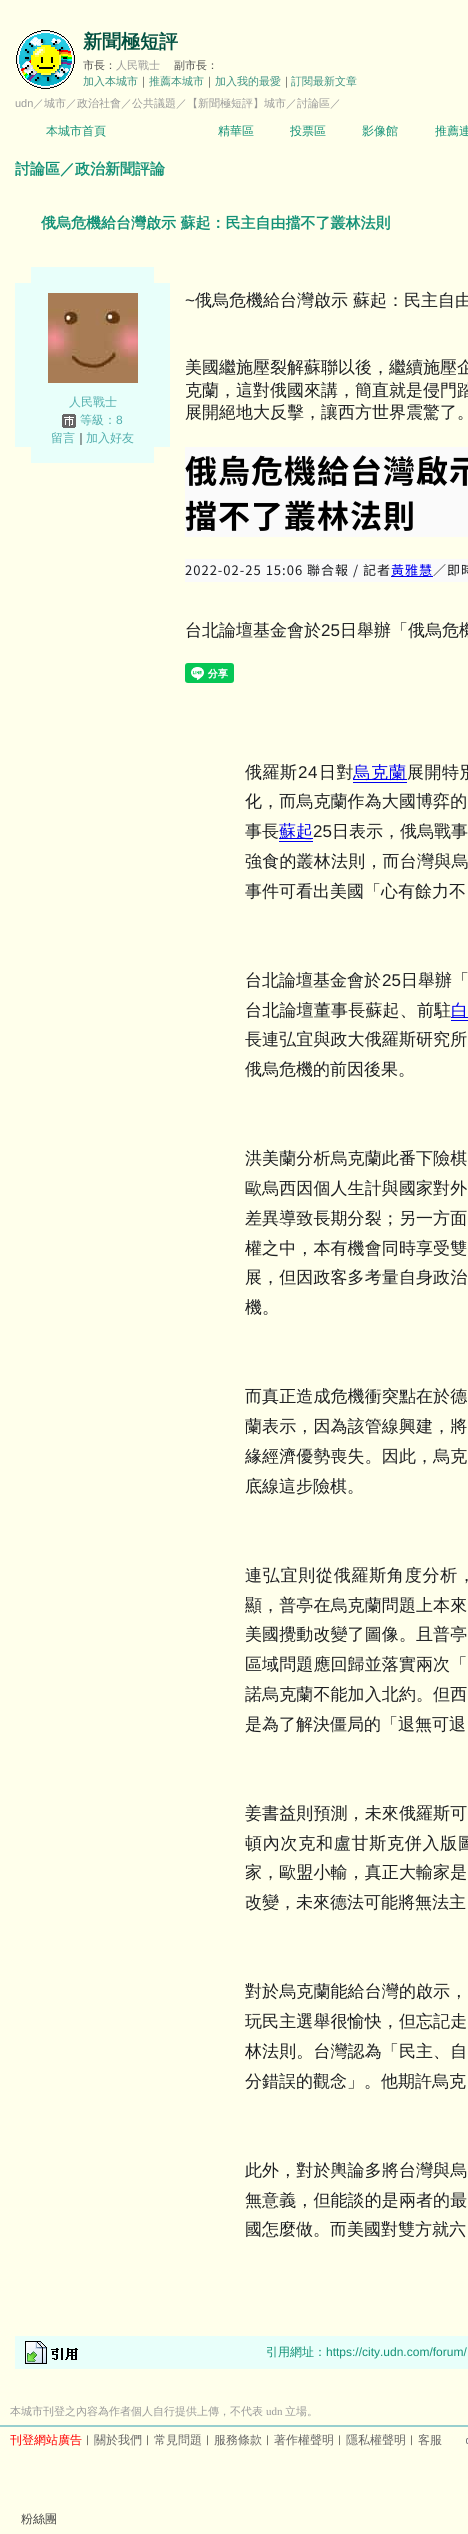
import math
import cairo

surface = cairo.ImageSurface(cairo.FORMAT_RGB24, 468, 2534)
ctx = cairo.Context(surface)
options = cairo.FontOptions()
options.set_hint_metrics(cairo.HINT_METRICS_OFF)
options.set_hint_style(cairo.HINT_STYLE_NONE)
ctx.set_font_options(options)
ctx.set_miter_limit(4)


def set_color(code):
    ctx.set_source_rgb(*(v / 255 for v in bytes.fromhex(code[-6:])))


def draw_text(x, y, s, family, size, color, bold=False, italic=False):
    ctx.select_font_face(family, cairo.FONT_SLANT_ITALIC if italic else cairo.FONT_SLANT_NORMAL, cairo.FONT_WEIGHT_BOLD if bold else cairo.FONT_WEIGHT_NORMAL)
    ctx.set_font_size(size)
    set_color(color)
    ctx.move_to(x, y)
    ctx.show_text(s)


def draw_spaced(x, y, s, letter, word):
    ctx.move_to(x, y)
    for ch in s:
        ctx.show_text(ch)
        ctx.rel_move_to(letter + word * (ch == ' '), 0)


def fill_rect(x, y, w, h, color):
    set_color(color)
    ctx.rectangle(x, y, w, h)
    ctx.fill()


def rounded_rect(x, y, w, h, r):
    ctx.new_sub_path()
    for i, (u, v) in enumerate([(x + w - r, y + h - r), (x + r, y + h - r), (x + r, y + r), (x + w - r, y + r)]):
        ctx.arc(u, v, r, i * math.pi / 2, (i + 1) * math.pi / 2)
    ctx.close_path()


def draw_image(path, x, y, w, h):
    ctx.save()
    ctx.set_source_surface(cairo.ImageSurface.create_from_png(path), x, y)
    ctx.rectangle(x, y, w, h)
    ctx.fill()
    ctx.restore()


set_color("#ffffeb")
ctx.paint()
draw_image("assets/img1.png", 16, 30, 59, 59)
draw_text(83, 48, "新聞極短評", "WenQuanYi Zen Hei", 19, "#004f3f", bold=True)
draw_text(83, 69, "市長：", "WenQuanYi Zen Hei Medium", 11, "#4d4d4d")
draw_text(116, 69, "人民戰士", "WenQuanYi Zen Hei Medium", 11, "#999999")
draw_text(174, 69, "副市長：", "WenQuanYi Zen Hei Medium", 11, "#4d4d4d")
draw_text(83, 85, "加入本城市", "WenQuanYi Zen Hei Medium", 11, "#3c9283")
draw_text(138, 85, "｜", "WenQuanYi Zen Hei Medium", 11, "#4d4d4d")
draw_text(149, 85, "推薦本城市", "WenQuanYi Zen Hei Medium", 11, "#3c9283")
draw_text(204, 85, "｜", "WenQuanYi Zen Hei Medium", 11, "#4d4d4d")
draw_text(215, 85, "加入我的最愛", "WenQuanYi Zen Hei Medium", 11, "#3c9283")
draw_text(281, 85, "｜", "WenQuanYi Zen Hei Medium", 11, "#4d4d4d")
draw_text(291, 85, "訂閱最新文章", "WenQuanYi Zen Hei Medium", 11, "#3c9283")
draw_text(15, 107, "udn", "Liberation Sans", 11, "#999999")
draw_text(33, 107, "／城市／政治社會／公共議題／【新聞極短評】城市／討論區／", "WenQuanYi Zen Hei Medium", 11, "#999999")
draw_text(46, 135, "本城市首頁", "WenQuanYi Zen Hei Medium", 12, "#139177")
draw_text(218, 135, "精華區", "WenQuanYi Zen Hei Medium", 12, "#139177")
draw_text(290, 135, "投票區", "WenQuanYi Zen Hei Medium", 12, "#139177")
draw_text(362, 135, "影像館", "WenQuanYi Zen Hei Medium", 12, "#139177")
draw_text(435, 135, "推薦連", "WenQuanYi Zen Hei Medium", 12, "#139177")
draw_text(15, 174, "討論區／政治新聞評論", "WenQuanYi Zen Hei", 15, "#139177", bold=True)
draw_text(41, 228, "俄烏危機給台灣啟示 蘇起：民主自由擋不了叢林法則", "WenQuanYi Zen Hei", 15, "#139177", bold=True)
fill_rect(31, 267, 123, 16, "#e8fffa")
fill_rect(15, 283, 155, 164, "#e8fffa")
draw_image("assets/img2.png", 48, 293, 90, 90)
draw_text(69, 406, "人民戰士", "WenQuanYi Zen Hei Medium", 12, "#52aead")
draw_image("assets/img3.png", 62, 414, 14, 14)
draw_text(80, 424, "等級：", "WenQuanYi Zen Hei Medium", 12, "#52aead")
draw_text(116, 424, "8", "Liberation Sans", 12, "#52aead")
draw_text(51, 442, "留言", "WenQuanYi Zen Hei Medium", 12, "#52aead")
draw_text(75, 442, "｜", "WenQuanYi Zen Hei Medium", 12, "#000000")
draw_text(86, 442, "加入好友", "WenQuanYi Zen Hei Medium", 12, "#52aead")
fill_rect(31, 447, 123, 16, "#e8fffa")
draw_text(185, 306, "~", "Liberation Sans", 17, "#1c1e21")
draw_text(195, 306, "俄烏危機給台灣啟示 蘇起：民主自由", "WenQuanYi Zen Hei Medium", 17, "#1c1e21")
draw_text(185, 373, "美國繼施壓裂解蘇聯以後，繼續施壓企", "WenQuanYi Zen Hei Medium", 17, "#1c1e21")
draw_text(185, 396, "克蘭，這對俄國來講，簡直就是侵門踏", "WenQuanYi Zen Hei Medium", 17, "#1c1e21")
draw_text(185, 418, "展開絕地大反擊，讓西方世界震驚了。", "WenQuanYi Zen Hei Medium", 17, "#1c1e21")
fill_rect(185, 447, 283, 90, "#fafafa")
ctx.select_font_face("Noto Sans TC", cairo.FONT_SLANT_NORMAL, cairo.FONT_WEIGHT_BOLD)
ctx.set_font_size(32)
set_color("#000000")
draw_spaced(185, 483, "俄烏危機給台灣啟示", 1, 0)
draw_spaced(185, 528, "擋不了叢林法則", 1, 0)
fill_rect(185, 559, 283, 23, "#fafafa")
ctx.select_font_face("Noto Sans TC")
ctx.set_font_size(13)
set_color("#1c1e21")
draw_spaced(185, 575, "2022-02-25 15:06 聯合報 / 記者", 1, 0)
fill_rect(391, 576, 42, 1, "#0000ee")
draw_spaced(391, 575, "黃雅慧", 1, 0)
set_color("#1c1e21")
draw_spaced(433, 575, "／即時", 1, 0)
draw_text(185, 636, "台北論壇基金會於", "WenQuanYi Zen Hei Medium", 17, "#1c1e21")
draw_text(321, 636, "25", "Liberation Sans", 17, "#1c1e21")
draw_text(340, 636, "日舉辦「俄烏危機", "WenQuanYi Zen Hei Medium", 17, "#1c1e21")
draw_image("assets/img4.png", 185, 663, 49, 20)
draw_spaced(245, 778, "俄羅斯", 0.5, 0)
ctx.select_font_face("Liberation Sans")
draw_spaced(298, 778, "24", 0.5, 0)
ctx.select_font_face("WenQuanYi Zen Hei Medium")
draw_spaced(319, 778, "日對", 0.5, 0)
fill_rect(353, 779, 54, 1, "#0000ee")
draw_spaced(353, 778, "烏克蘭", 1, 0)
fill_rect(353, 782, 54, 1, "#0000ee")
set_color("#1c1e21")
draw_spaced(407, 778, "展開特別", 0.5, 0)
draw_spaced(245, 807, "化，而烏克蘭作為大國博弈的", 0.1, 0)
draw_text(245, 837, "事長", "WenQuanYi Zen Hei Medium", 17, "#1c1e21")
fill_rect(279, 838, 34, 1, "#0000ee")
draw_text(279, 837, "蘇起", "WenQuanYi Zen Hei Medium", 17, "#0000ee")
fill_rect(279, 841, 34, 1, "#0000ee")
draw_text(313, 837, "25", "Liberation Sans", 17, "#1c1e21")
draw_text(332, 837, "日表示，俄烏戰事", "WenQuanYi Zen Hei Medium", 17, "#1c1e21")
draw_spaced(245, 867, "強食的叢林法則，而台灣與烏", 0.2, 0)
draw_text(245, 897, "事件可看出美國「心有餘力不", "WenQuanYi Zen Hei Medium", 17, "#1c1e21")
draw_text(245, 986, "台北論壇基金會於", "WenQuanYi Zen Hei Medium", 17, "#1c1e21")
draw_text(382, 986, "25", "Liberation Sans", 17, "#1c1e21")
draw_text(401, 986, "日舉辦「", "WenQuanYi Zen Hei Medium", 17, "#1c1e21")
draw_spaced(245, 1016, "台北論壇董事長蘇起、前駐", 0.2, 0)
fill_rect(451, 1017, 17, 1, "#0000ee")
draw_text(451, 1016, "白", "WenQuanYi Zen Hei Medium", 17, "#0000ee")
fill_rect(451, 1020, 17, 1, "#0000ee")
set_color("#1c1e21")
draw_spaced(245, 1045, "長連弘宜與政大俄羅斯研究所", 0.1, 0)
draw_text(245, 1075, "俄烏危機的前因後果。", "WenQuanYi Zen Hei Medium", 17, "#1c1e21")
draw_spaced(245, 1164, "洪美蘭分析烏克蘭此番下險棋", 0.1, 0)
draw_spaced(245, 1194, "歐烏西因個人生計與國家對外", 0.1, 0)
draw_spaced(245, 1224, "差異導致長期分裂；另一方面", 0.1, 0)
draw_spaced(245, 1254, "權之中，本有機會同時享受雙", 0.1, 0)
draw_spaced(245, 1283, "展，但因政客多考量自身政治", 0.1, 0)
draw_text(245, 1313, "機。", "WenQuanYi Zen Hei Medium", 17, "#1c1e21")
draw_spaced(245, 1402, "而真正造成危機衝突點在於德", 0.1, 0)
draw_spaced(245, 1432, "蘭表示，因為該管線興建，將", 0.1, 0)
draw_spaced(245, 1462, "緣經濟優勢喪失。因此，烏克", 0.1, 0)
draw_text(245, 1492, "底線這步險棋。", "WenQuanYi Zen Hei Medium", 17, "#1c1e21")
draw_spaced(245, 1581, "連弘宜則從俄羅斯角度分析，", 0.75, 0)
draw_spaced(245, 1611, "顯，普亭在烏克蘭問題上本來", 0.1, 0)
draw_spaced(245, 1640, "美國攪動改變了圖像。且普亭", 0.1, 0)
draw_spaced(245, 1670, "區域問題應回歸並落實兩次「", 0.1, 0)
draw_spaced(245, 1700, "諾烏克蘭不能加入北約。但西", 0.1, 0)
draw_text(245, 1730, "是為了解決僵局的「退無可退", "WenQuanYi Zen Hei Medium", 17, "#1c1e21")
draw_spaced(245, 1819, "姜書益則預測，未來俄羅斯可", 0.1, 0)
draw_spaced(245, 1849, "頓內次克和盧甘斯克併入版圖", 0.75, 0)
draw_spaced(245, 1878, "家，歐盟小輸，真正大輸家是", 0.1, 0)
draw_text(245, 1908, "改變，未來德法可能將無法主", "WenQuanYi Zen Hei Medium", 17, "#1c1e21")
draw_spaced(245, 1997, "對於烏克蘭能給台灣的啟示，", 0.1, 0)
draw_spaced(245, 2027, "玩民主選舉很愉快，但忘記走", 0.1, 0)
draw_spaced(245, 2057, "林法則。台灣認為「民主、自", 0.1, 0)
draw_text(245, 2087, "分錯誤的觀念」。他期許烏克", "WenQuanYi Zen Hei Medium", 17, "#1c1e21")
draw_spaced(245, 2176, "此外，對於輿論多將台灣與烏", 0.1, 0)
draw_spaced(245, 2206, "無意義，但能談的是兩者的最", 0.1, 0)
draw_text(245, 2235, "國怎麼做。而美國對雙方就六", "WenQuanYi Zen Hei Medium", 17, "#1c1e21")
fill_rect(15, 2336, 453, 33, "#e8fffa")
draw_image("assets/img5.png", 25, 2341, 53, 23)
draw_text(266, 2356, "引用網址：", "WenQuanYi Zen Hei Medium", 12, "#139177")
draw_text(326, 2356, "https://city.udn.com/forum/", "Liberation Sans", 12, "#139177")
fill_rect(0, 2425, 468, 2, "#98cfce")
draw_text(10, 2415, "本城市刊登之內容為作者個人自行提供上傳，不代表", "WenQuanYi Zen Hei Medium", 11, "#999999")
draw_text(266, 2415, "udn", "Liberation Serif", 11, "#999999")
draw_text(285, 2415, "立場。", "WenQuanYi Zen Hei Medium", 11, "#999999")
draw_text(10, 2444, "刊登網站廣告", "WenQuanYi Zen Hei Medium", 12, "#ff0000")
draw_text(82, 2444, "︱", "WenQuanYi Zen Hei Medium", 12, "#000000")
draw_text(94, 2444, "關於我們", "WenQuanYi Zen Hei Medium", 12, "#666666")
draw_text(142, 2444, "︱", "WenQuanYi Zen Hei Medium", 12, "#000000")
draw_text(154, 2444, "常見問題", "WenQuanYi Zen Hei Medium", 12, "#666666")
draw_text(202, 2444, "︱", "WenQuanYi Zen Hei Medium", 12, "#000000")
draw_text(214, 2444, "服務條款", "WenQuanYi Zen Hei Medium", 12, "#666666")
draw_text(262, 2444, "︱", "WenQuanYi Zen Hei Medium", 12, "#000000")
draw_text(274, 2444, "著作權聲明", "WenQuanYi Zen Hei Medium", 12, "#666666")
draw_text(334, 2444, "︱", "WenQuanYi Zen Hei Medium", 12, "#000000")
draw_text(346, 2444, "隱私權聲明", "WenQuanYi Zen Hei Medium", 12, "#666666")
draw_text(406, 2444, "︱", "WenQuanYi Zen Hei Medium", 12, "#000000")
draw_text(418, 2444, "客服", "WenQuanYi Zen Hei Medium", 12, "#666666")
set_color("#ffffff")
rounded_rect(466.5, 2438.5, 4, 5, 1.5)
ctx.fill_preserve()
set_color("#767676")
ctx.set_line_width(1)
ctx.stroke()
draw_text(21, 2523, "粉絲團", "WenQuanYi Zen Hei Medium", 12, "#444444")
surface.write_to_png("output.png")
